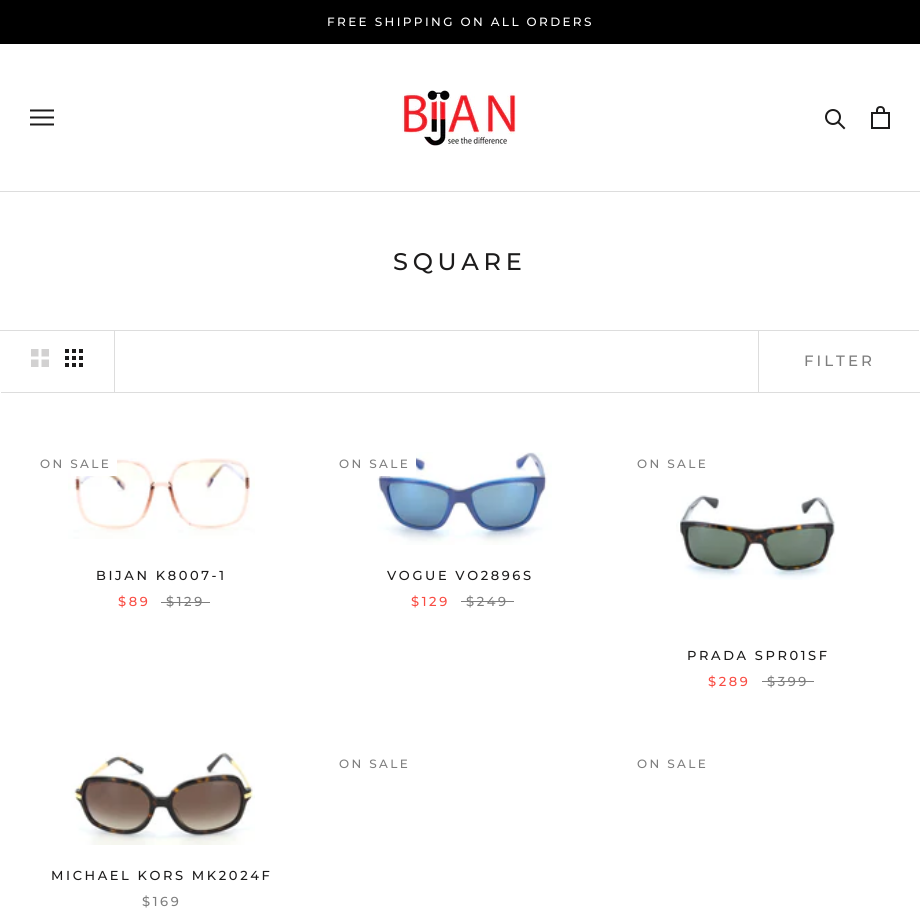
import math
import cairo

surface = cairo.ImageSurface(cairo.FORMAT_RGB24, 920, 917)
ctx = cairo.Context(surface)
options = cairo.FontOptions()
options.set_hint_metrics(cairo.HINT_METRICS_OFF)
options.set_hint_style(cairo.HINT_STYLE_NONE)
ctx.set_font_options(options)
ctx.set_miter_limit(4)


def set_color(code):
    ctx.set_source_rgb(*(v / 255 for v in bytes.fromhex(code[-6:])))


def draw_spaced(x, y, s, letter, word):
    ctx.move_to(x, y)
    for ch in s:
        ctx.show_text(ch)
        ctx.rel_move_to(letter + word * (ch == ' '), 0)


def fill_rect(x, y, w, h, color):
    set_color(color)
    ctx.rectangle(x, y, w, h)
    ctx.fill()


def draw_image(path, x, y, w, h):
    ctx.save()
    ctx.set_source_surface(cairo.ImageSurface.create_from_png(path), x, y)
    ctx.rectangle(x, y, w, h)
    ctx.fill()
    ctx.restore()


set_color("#ffffff")
ctx.paint()
fill_rect(0, 0, 920, 44, "#000000")
ctx.select_font_face("Montserrat Medium")
ctx.set_font_size(12)
set_color("#ffffff")
draw_spaced(327, 26, "FREE SHIPPING ON ALL ORDERS", 2.4, 0)
fill_rect(0, 191, 920, 1, "#dddddd")
draw_image("assets/img1.png", 30, 109, 24, 17)
draw_image("assets/img2.png", 402, 90, 114, 56)
ctx.new_path()
ctx.move_to(844, 128)
ctx.line_to(838.5, 122.5)
set_color("#1c1b1b")
ctx.set_line_cap(cairo.LINE_CAP_SQUARE)
ctx.stroke()
ctx.arc(833, 117, 7, 0, 2 * math.pi)
ctx.set_line_cap(cairo.LINE_CAP_BUTT)
ctx.stroke()
draw_image("assets/img3.png", 871, 106, 19, 23)
ctx.set_font_size(24)
draw_spaced(393, 270, "SQUARE", 4.75, 0)
set_color("#dddddd")
ctx.new_path()
ctx.move_to(-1, 330)
ctx.line_to(-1, 391)
ctx.line_to(0, 391)
ctx.line_to(0, 331)
ctx.line_to(919, 331)
ctx.line_to(919, 330)
ctx.close_path()
ctx.fill()
ctx.new_path()
ctx.move_to(1, 392)
ctx.line_to(1, 393)
ctx.line_to(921, 393)
ctx.line_to(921, 332)
ctx.line_to(920, 332)
ctx.line_to(920, 392)
ctx.close_path()
ctx.fill()
fill_rect(114, 331, 1, 61, "#dddddd")
draw_image("assets/img4.png", 31, 349, 18, 18)
draw_image("assets/img5.png", 65, 349, 18, 18)
fill_rect(758, 331, 1, 61, "#dddddd")
ctx.set_font_size(15)
set_color("#7e7e7e")
draw_spaced(804, 366, "FILTER", 3, 0)
draw_image("assets/img6.png", 68, 458, 187, 81)
fill_rect(71, 458, 46, 18, "#ffffff")
ctx.set_font_size(12)
set_color("#7e7e7e")
draw_spaced(40, 468, "ON SALE", 2.4, 0)
ctx.set_font_size(13)
set_color("#1c1b1b")
draw_spaced(96, 580, "BIJAN K8007-1", 2.6, 0)
set_color("#f94c43")
draw_spaced(118, 606, "$89", 2.6, 0)
set_color("#7e7e7e")
draw_spaced(166, 606, "$129", 2.6, 0)
fill_rect(161, 602, 49, 1, "#7e7e7e")
draw_image("assets/img7.png", 377, 452, 175, 93)
fill_rect(377, 452, 39, 24, "#ffffff")
ctx.set_font_size(12)
set_color("#7e7e7e")
draw_spaced(339, 468, "ON SALE", 2.4, 0)
ctx.set_font_size(13)
set_color("#1c1b1b")
draw_spaced(387, 580, "VOGUE VO2896S", 2.6, 0)
set_color("#f94c43")
draw_spaced(411, 606, "$129", 2.6, 0)
set_color("#7e7e7e")
draw_spaced(466, 606, "$249", 2.6, 0)
fill_rect(461, 601, 53, 1, "#7e7e7e")
ctx.set_font_size(12)
draw_spaced(637, 468, "ON SALE", 2.4, 0)
draw_image("assets/img8.png", 676, 495, 160, 85)
ctx.set_font_size(13)
set_color("#1c1b1b")
draw_spaced(687, 660, "PRADA SPR01SF", 2.6, 0)
set_color("#f94c43")
draw_spaced(708, 686, "$289", 2.6, 0)
set_color("#7e7e7e")
draw_spaced(767, 686, "$399", 2.6, 0)
fill_rect(762, 681, 52, 1, "#7e7e7e")
ctx.set_font_size(12)
draw_spaced(339, 768, "ON SALE", 2.4, 0)
draw_spaced(637, 768, "ON SALE", 2.4, 0)
draw_image("assets/img9.png", 71, 752, 184, 93)
ctx.set_font_size(13)
set_color("#1c1b1b")
draw_spaced(51, 880, "MICHAEL KORS MK2024F", 2.6, 0)
set_color("#7e7e7e")
draw_spaced(142, 906, "$169", 2.6, 0)
surface.write_to_png("output.png")
